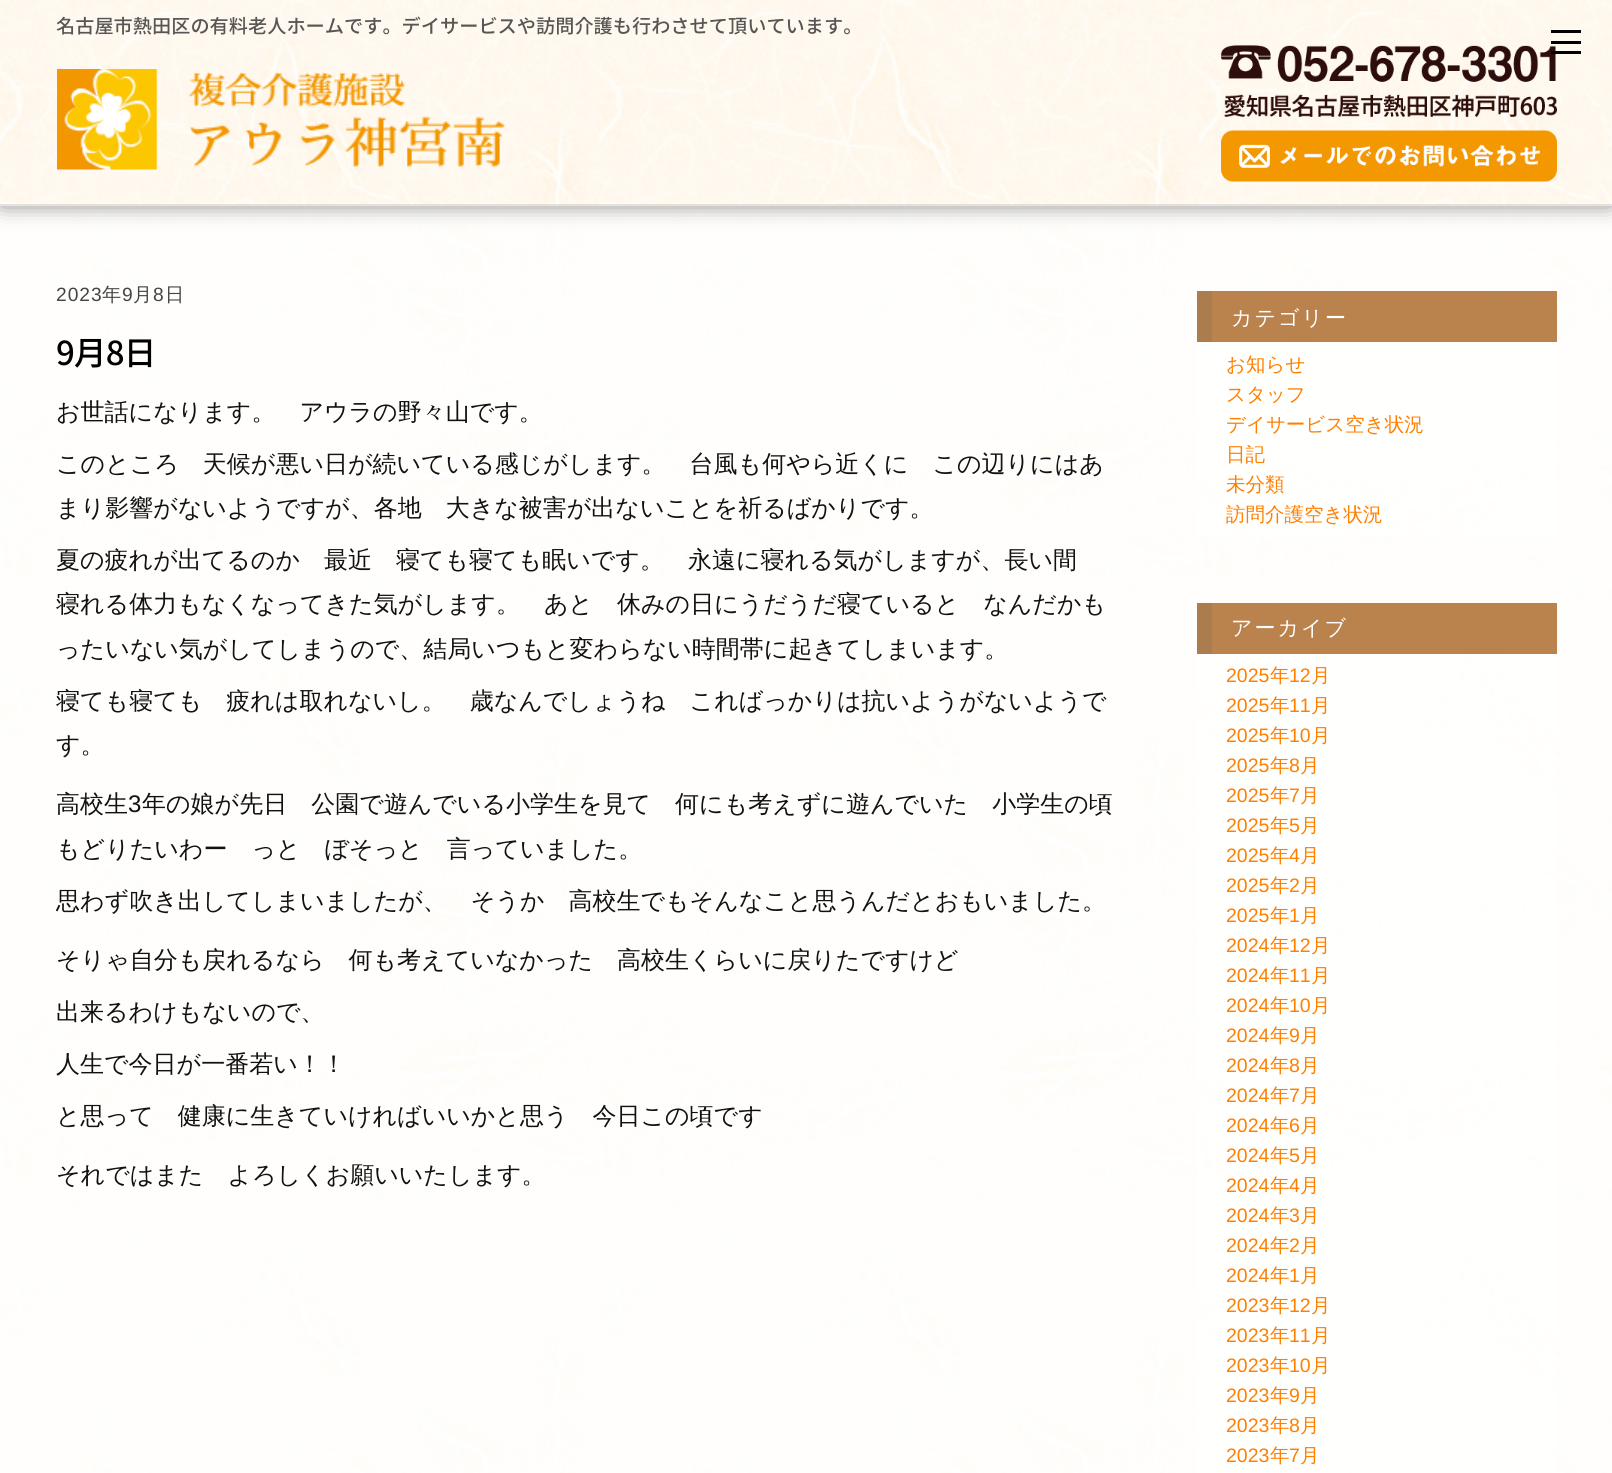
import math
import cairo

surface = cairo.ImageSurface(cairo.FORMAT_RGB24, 1612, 1473)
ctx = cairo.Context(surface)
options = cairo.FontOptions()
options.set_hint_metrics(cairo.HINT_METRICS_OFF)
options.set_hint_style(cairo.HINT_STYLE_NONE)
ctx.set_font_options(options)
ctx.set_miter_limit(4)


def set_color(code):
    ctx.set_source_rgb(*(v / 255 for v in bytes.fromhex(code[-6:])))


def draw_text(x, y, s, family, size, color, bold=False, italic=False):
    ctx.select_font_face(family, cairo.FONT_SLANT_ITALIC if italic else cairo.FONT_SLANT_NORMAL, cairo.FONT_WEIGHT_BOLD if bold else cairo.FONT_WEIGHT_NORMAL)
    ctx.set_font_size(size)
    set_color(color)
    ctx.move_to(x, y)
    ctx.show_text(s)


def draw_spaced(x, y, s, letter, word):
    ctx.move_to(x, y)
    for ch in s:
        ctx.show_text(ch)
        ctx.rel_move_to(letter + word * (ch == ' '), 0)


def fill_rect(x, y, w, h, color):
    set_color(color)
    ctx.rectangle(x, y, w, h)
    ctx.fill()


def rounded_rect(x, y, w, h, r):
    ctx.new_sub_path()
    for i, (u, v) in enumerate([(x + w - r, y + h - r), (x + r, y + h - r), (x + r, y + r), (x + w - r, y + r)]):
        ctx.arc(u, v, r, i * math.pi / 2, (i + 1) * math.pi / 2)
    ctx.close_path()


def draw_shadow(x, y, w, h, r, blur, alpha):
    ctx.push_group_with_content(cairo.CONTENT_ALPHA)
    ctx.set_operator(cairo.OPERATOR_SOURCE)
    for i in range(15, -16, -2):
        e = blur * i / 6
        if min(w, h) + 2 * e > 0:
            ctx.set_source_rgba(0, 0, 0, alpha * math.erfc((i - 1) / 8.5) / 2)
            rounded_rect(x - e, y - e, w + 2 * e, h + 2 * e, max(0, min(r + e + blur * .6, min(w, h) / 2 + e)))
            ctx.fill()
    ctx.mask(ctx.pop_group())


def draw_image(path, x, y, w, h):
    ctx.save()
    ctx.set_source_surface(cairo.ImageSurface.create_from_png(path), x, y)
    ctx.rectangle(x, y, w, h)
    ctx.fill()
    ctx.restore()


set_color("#ffffff")
ctx.paint()
draw_image("assets/img1.png", 0, 206, 1612, 1267)
set_color("#777777")
draw_shadow(2, 2, 1609, 202, 0, 11, 1)
fill_rect(0, 205, 1612, 1, "#fafafa")
draw_image("assets/img2.png", 0, 0, 1612, 206)
ctx.set_source_rgba(0, 0, 0, 0.1)
ctx.rectangle(0, 204, 1612, 2)
ctx.fill()
draw_text(56, 33, "名古屋市熱田区の有料老人ホームです。デイサービスや訪問介護も行わさせて頂いています。", "Noto Sans JP Medium", 19.2, "#585654")
draw_image("assets/img3.png", 57, 69, 449, 101)
draw_image("assets/img4.png", 1221, 45, 336, 72)
draw_image("assets/img5.png", 1221, 130, 336, 52)
fill_rect(1551, 51, 30, 3, "#000000")
fill_rect(1551, 30, 30, 3, "#000000")
fill_rect(1551, 41, 30, 3, "#000000")
ctx.select_font_face("Liberation Sans")
set_color("#444444")
draw_spaced(56, 301, "2023", 1, 0)
ctx.select_font_face("WenQuanYi Zen Hei Medium")
draw_spaced(102, 301, "年", 1, 0)
ctx.select_font_face("Liberation Sans")
draw_spaced(122, 301, "9", 1, 0)
ctx.select_font_face("WenQuanYi Zen Hei Medium")
draw_spaced(133, 301, "月", 1, 0)
ctx.select_font_face("Liberation Sans")
draw_spaced(153, 301, "8", 1, 0)
ctx.select_font_face("WenQuanYi Zen Hei Medium")
draw_spaced(165, 301, "日", 1, 0)
ctx.select_font_face("Noto Sans JP Medium")
ctx.set_font_size(33)
set_color("#000000")
draw_spaced(56, 365, "9月8日", -1, 0)
draw_text(56, 420, "お世話になります。　アウラの野々山です。", "WenQuanYi Zen Hei Medium", 24, "#111111")
draw_text(56, 472, "このところ　天候が悪い日が続いている感じがします。　台風も何やら近くに　この辺りにはあ", "WenQuanYi Zen Hei Medium", 24, "#111111")
draw_text(56, 516, "まり影響がないようですが、各地　大きな被害が出ないことを祈るばかりです。", "WenQuanYi Zen Hei Medium", 24, "#111111")
draw_text(56, 568, "夏の疲れが出てるのか　最近　寝ても寝ても眠いです。　永遠に寝れる気がしますが、長い間", "WenQuanYi Zen Hei Medium", 24, "#111111")
draw_text(56, 612, "寝れる体力もなくなってきた気がします。　あと　休みの日にうだうだ寝ていると　なんだかも", "WenQuanYi Zen Hei Medium", 24, "#111111")
draw_text(56, 657, "ったいない気がしてしまうので、結局いつもと変わらない時間帯に起きてしまいます。", "WenQuanYi Zen Hei Medium", 24, "#111111")
draw_text(56, 709, "寝ても寝ても　疲れは取れないし。　歳なんでしょうね　こればっかりは抗いようがないようで", "WenQuanYi Zen Hei Medium", 24, "#111111")
draw_text(56, 753, "す。", "WenQuanYi Zen Hei Medium", 24, "#111111")
draw_text(56, 812, "高校生", "WenQuanYi Zen Hei Medium", 24, "#111111")
draw_text(128, 812, "3", "Liberation Sans", 24, "#111111")
draw_text(142, 812, "年の娘が先日　公園で遊んでいる小学生を見て　何にも考えずに遊んでいた　小学生の頃", "WenQuanYi Zen Hei Medium", 24, "#111111")
draw_text(56, 857, "もどりたいわー　っと　ぼそっと　言っていました。", "WenQuanYi Zen Hei Medium", 24, "#111111")
draw_text(56, 909, "思わず吹き出してしまいましたが、　そうか　高校生でもそんなこと思うんだとおもいました。", "WenQuanYi Zen Hei Medium", 24, "#111111")
draw_text(56, 968, "そりゃ自分も戻れるなら　何も考えていなかった　高校生くらいに戻りたですけど", "WenQuanYi Zen Hei Medium", 24, "#111111")
draw_text(56, 1020, "出来るわけもないので、", "WenQuanYi Zen Hei Medium", 24, "#111111")
draw_text(56, 1072, "人生で今日が一番若い！！", "WenQuanYi Zen Hei Medium", 24, "#111111")
draw_text(56, 1124, "と思って　健康に生きていければいいかと思う　今日この頃です", "WenQuanYi Zen Hei Medium", 24, "#111111")
draw_text(56, 1183, "それではまた　よろしくお願いいたします。", "WenQuanYi Zen Hei Medium", 24, "#111111")
fill_rect(1212, 291, 345, 51, "#ba834d")
fill_rect(1197, 291, 15, 51, "#ab7c4e")
ctx.set_font_size(21)
set_color("#ffffff")
draw_spaced(1231, 325, "カテゴリー", 2, 0)
ctx.set_source_rgba(1, 1, 1, 0.5)
ctx.rectangle(1197, 342, 360, 195)
ctx.fill()
draw_text(1226, 371, "お知らせ", "WenQuanYi Zen Hei Medium", 19.5, "#ff7f00")
draw_text(1226, 401, "スタッフ", "WenQuanYi Zen Hei Medium", 19.5, "#ff7f00")
draw_text(1226, 431, "デイサービス空き状況", "WenQuanYi Zen Hei Medium", 19.5, "#ff7f00")
draw_text(1226, 461, "日記", "WenQuanYi Zen Hei Medium", 19.5, "#ff7f00")
draw_text(1226, 491, "未分類", "WenQuanYi Zen Hei Medium", 19.5, "#ff7f00")
draw_text(1226, 521, "訪問介護空き状況", "WenQuanYi Zen Hei Medium", 19.5, "#ff7f00")
fill_rect(1212, 603, 345, 51, "#ba834d")
fill_rect(1197, 603, 15, 51, "#ab7c4e")
ctx.set_font_size(21)
set_color("#ffffff")
draw_spaced(1231, 635, "アーカイブ", 2, 0)
ctx.set_source_rgba(1, 1, 1, 0.5)
ctx.rectangle(1197, 654, 360, 819)
ctx.fill()
draw_text(1226, 682, "2025", "Liberation Sans", 19.5, "#ff7f00")
draw_text(1270, 682, "年", "WenQuanYi Zen Hei Medium", 19.5, "#ff7f00")
draw_text(1289, 682, "12", "Liberation Sans", 19.5, "#ff7f00")
draw_text(1311, 682, "月", "WenQuanYi Zen Hei Medium", 19.5, "#ff7f00")
draw_text(1226, 712, "2025", "Liberation Sans", 19.5, "#ff7f00")
draw_text(1270, 712, "年", "WenQuanYi Zen Hei Medium", 19.5, "#ff7f00")
draw_text(1289, 712, "11", "Liberation Sans", 19.5, "#ff7f00")
draw_text(1311, 712, "月", "WenQuanYi Zen Hei Medium", 19.5, "#ff7f00")
draw_text(1226, 742, "2025", "Liberation Sans", 19.5, "#ff7f00")
draw_text(1270, 742, "年", "WenQuanYi Zen Hei Medium", 19.5, "#ff7f00")
draw_text(1289, 742, "10", "Liberation Sans", 19.5, "#ff7f00")
draw_text(1311, 742, "月", "WenQuanYi Zen Hei Medium", 19.5, "#ff7f00")
draw_text(1226, 772, "2025", "Liberation Sans", 19.5, "#ff7f00")
draw_text(1270, 772, "年", "WenQuanYi Zen Hei Medium", 19.5, "#ff7f00")
draw_text(1289, 772, "8", "Liberation Sans", 19.5, "#ff7f00")
draw_text(1300, 772, "月", "WenQuanYi Zen Hei Medium", 19.5, "#ff7f00")
draw_text(1226, 802, "2025", "Liberation Sans", 19.5, "#ff7f00")
draw_text(1270, 802, "年", "WenQuanYi Zen Hei Medium", 19.5, "#ff7f00")
draw_text(1289, 802, "7", "Liberation Sans", 19.5, "#ff7f00")
draw_text(1300, 802, "月", "WenQuanYi Zen Hei Medium", 19.5, "#ff7f00")
draw_text(1226, 832, "2025", "Liberation Sans", 19.5, "#ff7f00")
draw_text(1270, 832, "年", "WenQuanYi Zen Hei Medium", 19.5, "#ff7f00")
draw_text(1289, 832, "5", "Liberation Sans", 19.5, "#ff7f00")
draw_text(1300, 832, "月", "WenQuanYi Zen Hei Medium", 19.5, "#ff7f00")
draw_text(1226, 862, "2025", "Liberation Sans", 19.5, "#ff7f00")
draw_text(1270, 862, "年", "WenQuanYi Zen Hei Medium", 19.5, "#ff7f00")
draw_text(1289, 862, "4", "Liberation Sans", 19.5, "#ff7f00")
draw_text(1300, 862, "月", "WenQuanYi Zen Hei Medium", 19.5, "#ff7f00")
draw_text(1226, 892, "2025", "Liberation Sans", 19.5, "#ff7f00")
draw_text(1270, 892, "年", "WenQuanYi Zen Hei Medium", 19.5, "#ff7f00")
draw_text(1289, 892, "2", "Liberation Sans", 19.5, "#ff7f00")
draw_text(1300, 892, "月", "WenQuanYi Zen Hei Medium", 19.5, "#ff7f00")
draw_text(1226, 922, "2025", "Liberation Sans", 19.5, "#ff7f00")
draw_text(1270, 922, "年", "WenQuanYi Zen Hei Medium", 19.5, "#ff7f00")
draw_text(1289, 922, "1", "Liberation Sans", 19.5, "#ff7f00")
draw_text(1300, 922, "月", "WenQuanYi Zen Hei Medium", 19.5, "#ff7f00")
draw_text(1226, 952, "2024", "Liberation Sans", 19.5, "#ff7f00")
draw_text(1270, 952, "年", "WenQuanYi Zen Hei Medium", 19.5, "#ff7f00")
draw_text(1289, 952, "12", "Liberation Sans", 19.5, "#ff7f00")
draw_text(1311, 952, "月", "WenQuanYi Zen Hei Medium", 19.5, "#ff7f00")
draw_text(1226, 982, "2024", "Liberation Sans", 19.5, "#ff7f00")
draw_text(1270, 982, "年", "WenQuanYi Zen Hei Medium", 19.5, "#ff7f00")
draw_text(1289, 982, "11", "Liberation Sans", 19.5, "#ff7f00")
draw_text(1311, 982, "月", "WenQuanYi Zen Hei Medium", 19.5, "#ff7f00")
draw_text(1226, 1012, "2024", "Liberation Sans", 19.5, "#ff7f00")
draw_text(1270, 1012, "年", "WenQuanYi Zen Hei Medium", 19.5, "#ff7f00")
draw_text(1289, 1012, "10", "Liberation Sans", 19.5, "#ff7f00")
draw_text(1311, 1012, "月", "WenQuanYi Zen Hei Medium", 19.5, "#ff7f00")
draw_text(1226, 1042, "2024", "Liberation Sans", 19.5, "#ff7f00")
draw_text(1270, 1042, "年", "WenQuanYi Zen Hei Medium", 19.5, "#ff7f00")
draw_text(1289, 1042, "9", "Liberation Sans", 19.5, "#ff7f00")
draw_text(1300, 1042, "月", "WenQuanYi Zen Hei Medium", 19.5, "#ff7f00")
draw_text(1226, 1072, "2024", "Liberation Sans", 19.5, "#ff7f00")
draw_text(1270, 1072, "年", "WenQuanYi Zen Hei Medium", 19.5, "#ff7f00")
draw_text(1289, 1072, "8", "Liberation Sans", 19.5, "#ff7f00")
draw_text(1300, 1072, "月", "WenQuanYi Zen Hei Medium", 19.5, "#ff7f00")
draw_text(1226, 1102, "2024", "Liberation Sans", 19.5, "#ff7f00")
draw_text(1270, 1102, "年", "WenQuanYi Zen Hei Medium", 19.5, "#ff7f00")
draw_text(1289, 1102, "7", "Liberation Sans", 19.5, "#ff7f00")
draw_text(1300, 1102, "月", "WenQuanYi Zen Hei Medium", 19.5, "#ff7f00")
draw_text(1226, 1132, "2024", "Liberation Sans", 19.5, "#ff7f00")
draw_text(1270, 1132, "年", "WenQuanYi Zen Hei Medium", 19.5, "#ff7f00")
draw_text(1289, 1132, "6", "Liberation Sans", 19.5, "#ff7f00")
draw_text(1300, 1132, "月", "WenQuanYi Zen Hei Medium", 19.5, "#ff7f00")
draw_text(1226, 1162, "2024", "Liberation Sans", 19.5, "#ff7f00")
draw_text(1270, 1162, "年", "WenQuanYi Zen Hei Medium", 19.5, "#ff7f00")
draw_text(1289, 1162, "5", "Liberation Sans", 19.5, "#ff7f00")
draw_text(1300, 1162, "月", "WenQuanYi Zen Hei Medium", 19.5, "#ff7f00")
draw_text(1226, 1192, "2024", "Liberation Sans", 19.5, "#ff7f00")
draw_text(1270, 1192, "年", "WenQuanYi Zen Hei Medium", 19.5, "#ff7f00")
draw_text(1289, 1192, "4", "Liberation Sans", 19.5, "#ff7f00")
draw_text(1300, 1192, "月", "WenQuanYi Zen Hei Medium", 19.5, "#ff7f00")
draw_text(1226, 1222, "2024", "Liberation Sans", 19.5, "#ff7f00")
draw_text(1270, 1222, "年", "WenQuanYi Zen Hei Medium", 19.5, "#ff7f00")
draw_text(1289, 1222, "3", "Liberation Sans", 19.5, "#ff7f00")
draw_text(1300, 1222, "月", "WenQuanYi Zen Hei Medium", 19.5, "#ff7f00")
draw_text(1226, 1252, "2024", "Liberation Sans", 19.5, "#ff7f00")
draw_text(1270, 1252, "年", "WenQuanYi Zen Hei Medium", 19.5, "#ff7f00")
draw_text(1289, 1252, "2", "Liberation Sans", 19.5, "#ff7f00")
draw_text(1300, 1252, "月", "WenQuanYi Zen Hei Medium", 19.5, "#ff7f00")
draw_text(1226, 1282, "2024", "Liberation Sans", 19.5, "#ff7f00")
draw_text(1270, 1282, "年", "WenQuanYi Zen Hei Medium", 19.5, "#ff7f00")
draw_text(1289, 1282, "1", "Liberation Sans", 19.5, "#ff7f00")
draw_text(1300, 1282, "月", "WenQuanYi Zen Hei Medium", 19.5, "#ff7f00")
draw_text(1226, 1312, "2023", "Liberation Sans", 19.5, "#ff7f00")
draw_text(1270, 1312, "年", "WenQuanYi Zen Hei Medium", 19.5, "#ff7f00")
draw_text(1289, 1312, "12", "Liberation Sans", 19.5, "#ff7f00")
draw_text(1311, 1312, "月", "WenQuanYi Zen Hei Medium", 19.5, "#ff7f00")
draw_text(1226, 1342, "2023", "Liberation Sans", 19.5, "#ff7f00")
draw_text(1270, 1342, "年", "WenQuanYi Zen Hei Medium", 19.5, "#ff7f00")
draw_text(1289, 1342, "11", "Liberation Sans", 19.5, "#ff7f00")
draw_text(1311, 1342, "月", "WenQuanYi Zen Hei Medium", 19.5, "#ff7f00")
draw_text(1226, 1372, "2023", "Liberation Sans", 19.5, "#ff7f00")
draw_text(1270, 1372, "年", "WenQuanYi Zen Hei Medium", 19.5, "#ff7f00")
draw_text(1289, 1372, "10", "Liberation Sans", 19.5, "#ff7f00")
draw_text(1311, 1372, "月", "WenQuanYi Zen Hei Medium", 19.5, "#ff7f00")
draw_text(1226, 1402, "2023", "Liberation Sans", 19.5, "#ff7f00")
draw_text(1270, 1402, "年", "WenQuanYi Zen Hei Medium", 19.5, "#ff7f00")
draw_text(1289, 1402, "9", "Liberation Sans", 19.5, "#ff7f00")
draw_text(1300, 1402, "月", "WenQuanYi Zen Hei Medium", 19.5, "#ff7f00")
draw_text(1226, 1432, "2023", "Liberation Sans", 19.5, "#ff7f00")
draw_text(1270, 1432, "年", "WenQuanYi Zen Hei Medium", 19.5, "#ff7f00")
draw_text(1289, 1432, "8", "Liberation Sans", 19.5, "#ff7f00")
draw_text(1300, 1432, "月", "WenQuanYi Zen Hei Medium", 19.5, "#ff7f00")
draw_text(1226, 1462, "2023", "Liberation Sans", 19.5, "#ff7f00")
draw_text(1270, 1462, "年", "WenQuanYi Zen Hei Medium", 19.5, "#ff7f00")
draw_text(1289, 1462, "7", "Liberation Sans", 19.5, "#ff7f00")
draw_text(1300, 1462, "月", "WenQuanYi Zen Hei Medium", 19.5, "#ff7f00")
surface.write_to_png("output.png")
